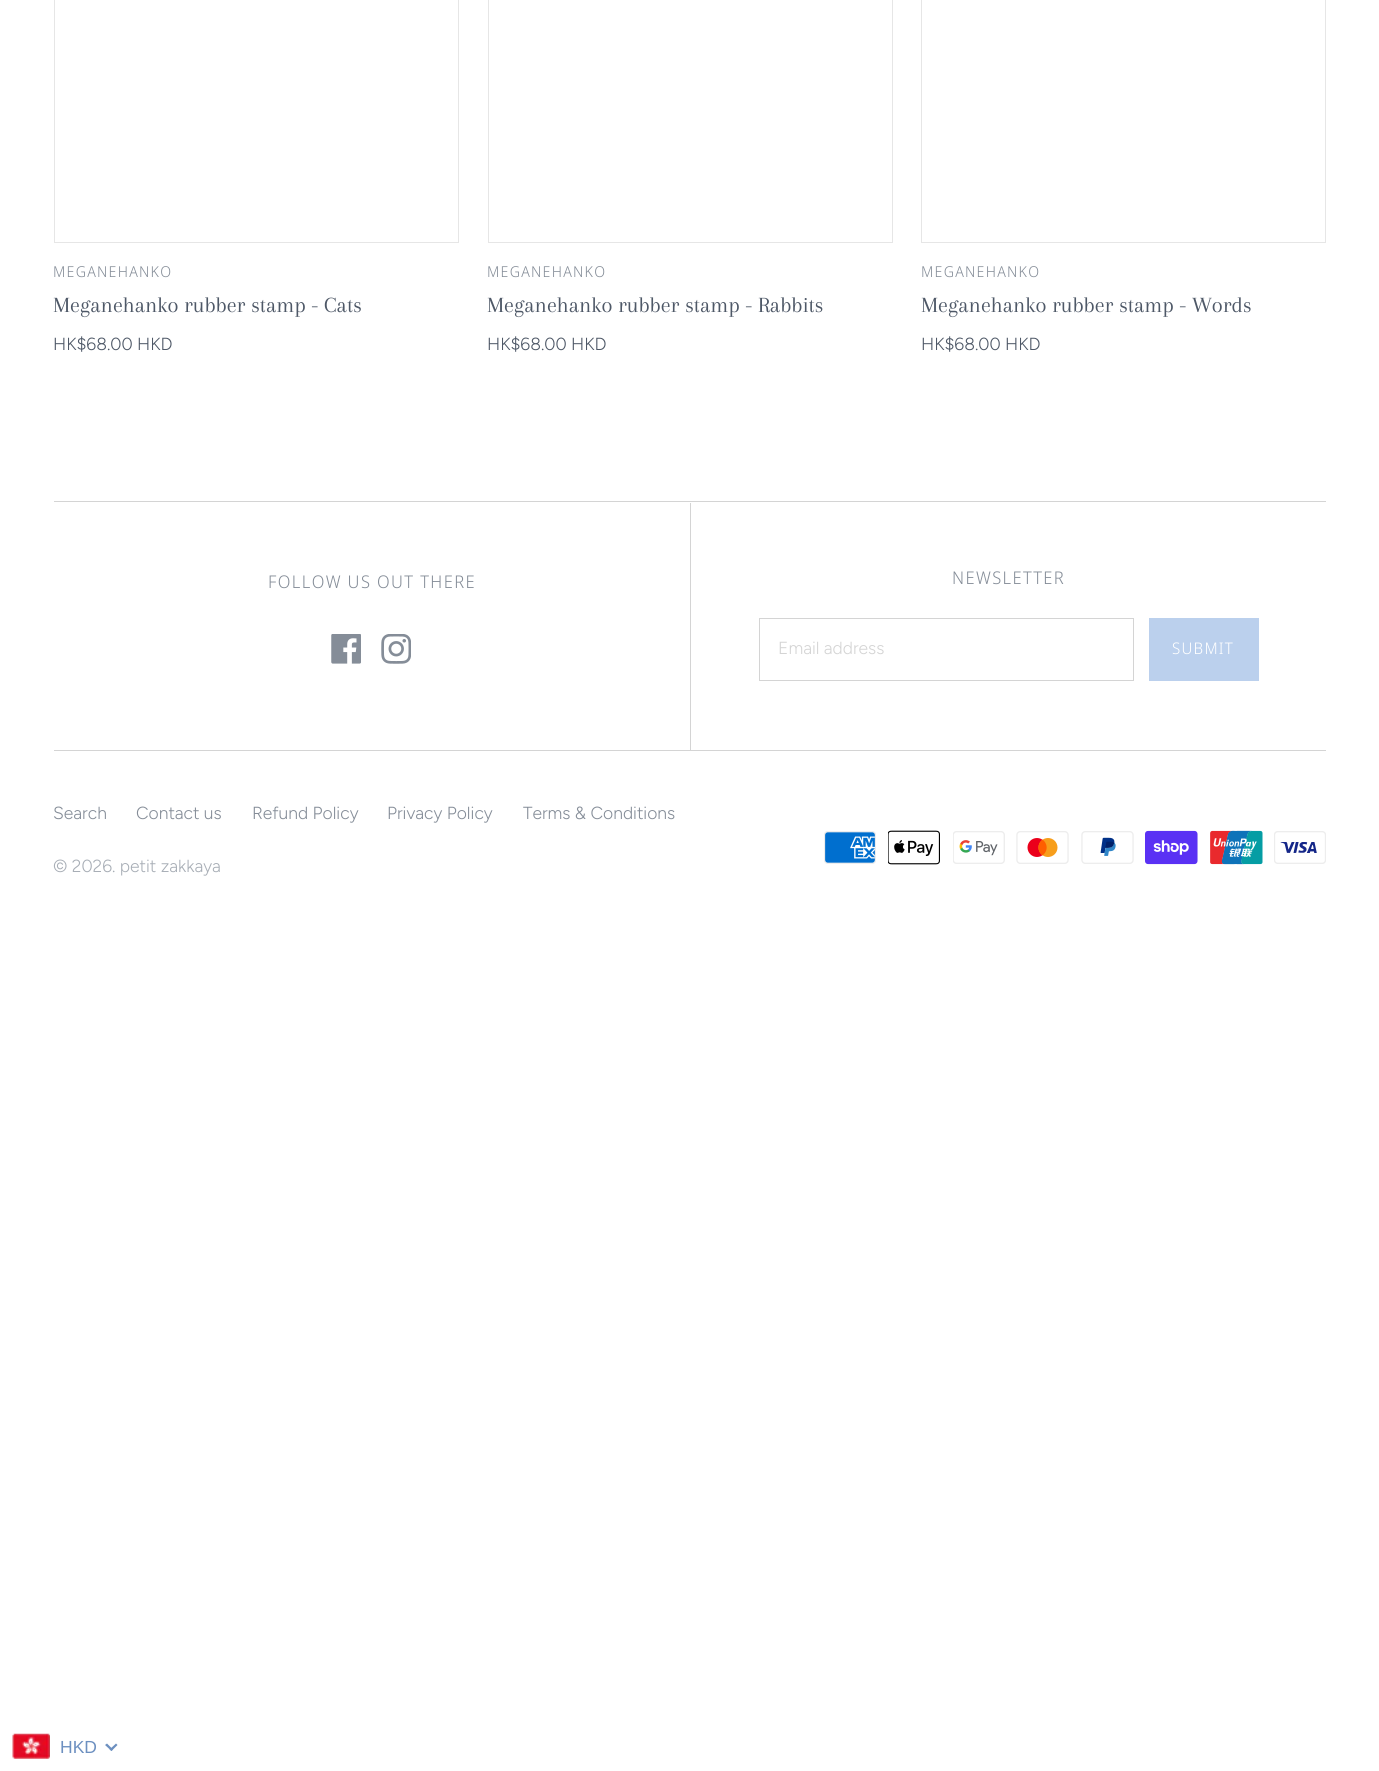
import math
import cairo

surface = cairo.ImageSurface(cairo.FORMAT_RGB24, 1379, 1771)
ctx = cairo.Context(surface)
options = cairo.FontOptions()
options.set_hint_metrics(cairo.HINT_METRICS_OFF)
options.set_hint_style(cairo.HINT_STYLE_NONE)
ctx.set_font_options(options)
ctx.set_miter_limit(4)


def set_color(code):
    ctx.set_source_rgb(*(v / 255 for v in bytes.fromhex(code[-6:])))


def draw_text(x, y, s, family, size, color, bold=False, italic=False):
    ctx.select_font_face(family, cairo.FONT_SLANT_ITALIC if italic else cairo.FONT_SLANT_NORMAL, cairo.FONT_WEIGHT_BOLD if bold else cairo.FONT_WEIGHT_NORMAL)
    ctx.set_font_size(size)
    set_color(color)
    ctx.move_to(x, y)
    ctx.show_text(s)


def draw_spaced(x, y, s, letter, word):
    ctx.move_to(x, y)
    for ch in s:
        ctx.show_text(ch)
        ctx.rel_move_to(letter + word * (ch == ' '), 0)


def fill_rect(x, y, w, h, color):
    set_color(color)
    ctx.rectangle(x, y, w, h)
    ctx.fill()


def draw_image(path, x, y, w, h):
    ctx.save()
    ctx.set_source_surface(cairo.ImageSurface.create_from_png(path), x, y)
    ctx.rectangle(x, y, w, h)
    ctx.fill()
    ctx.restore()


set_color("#ffffff")
ctx.paint()
ctx.rectangle(54.5, -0.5, 404, 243)
set_color("#e6e6e6")
ctx.set_line_width(1)
ctx.stroke()
ctx.select_font_face("Noto Sans Display Light")
ctx.set_font_size(15)
set_color("#858d98")
draw_spaced(53, 277, "MEGANEHANKO", 1.25, 0)
draw_text(53, 312, "Meganehanko rubber stamp - Cats", "Arapey", 22.5, "#4e5867")
draw_text(53, 350, "HK$68.00 HKD", "Figtree Light", 17.5, "#4e5867")
ctx.rectangle(488.5, -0.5, 404, 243)
set_color("#e6e6e6")
ctx.stroke()
ctx.select_font_face("Noto Sans Display Light")
ctx.set_font_size(15)
set_color("#858d98")
draw_spaced(487, 277, "MEGANEHANKO", 1.25, 0)
draw_text(487, 312, "Meganehanko rubber stamp - Rabbits", "Arapey", 22.5, "#4e5867")
draw_text(487, 350, "HK$68.00 HKD", "Figtree Light", 17.5, "#4e5867")
ctx.rectangle(921.5, -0.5, 404, 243)
set_color("#e6e6e6")
ctx.stroke()
ctx.select_font_face("Noto Sans Display Light")
ctx.set_font_size(15)
set_color("#858d98")
draw_spaced(921, 277, "MEGANEHANKO", 1.25, 0)
draw_text(921, 312, "Meganehanko rubber stamp - Words", "Arapey", 22.5, "#4e5867")
draw_text(921, 350, "HK$68.00 HKD", "Figtree Light", 17.5, "#4e5867")
fill_rect(54, 501, 1272, 1, "#d4d4d4")
fill_rect(54, 750, 1272, 1, "#d4d4d4")
ctx.select_font_face("Noto Sans Display Light")
set_color("#858d98")
draw_spaced(268, 588, "FOLLOW US OUT THERE", 1.4, 0)
draw_image("assets/img1.png", 331, 634, 30, 30)
draw_image("assets/img2.png", 381, 634, 30, 30)
fill_rect(690, 503, 1, 247, "#d4d4d4")
set_color("#858d98")
draw_spaced(952, 584, "NEWSLETTER", 1.4, 0)
ctx.rectangle(759.5, 618.5, 374, 62)
set_color("#d4d4d4")
ctx.stroke()
draw_text(778, 654, "Email address", "Figtree Light", 17.5, "#d4d4d4")
fill_rect(1149, 618, 110, 63, "#bbd0ed")
ctx.select_font_face("Noto Sans Display Light")
ctx.set_font_size(16)
set_color("#ffffff")
draw_spaced(1172, 654, "SUBMIT", 1.25, 0)
draw_text(53, 819, "Search", "Figtree Light", 17.5, "#858d98")
draw_text(136, 819, "Contact us", "Figtree Light", 17.5, "#858d98")
draw_text(252, 819, "Refund Policy", "Figtree Light", 17.5, "#858d98")
draw_text(387, 819, "Privacy Policy", "Figtree Light", 17.5, "#858d98")
draw_text(523, 819, "Terms & Conditions", "Figtree Light", 17.5, "#858d98")
draw_text(53, 872, "© 2026. petit zakkaya", "Figtree Light", 17.5, "#a8aeb6")
draw_image("assets/img3.png", 824, 831, 52, 33)
draw_image("assets/img4.png", 888, 830, 52, 35)
draw_image("assets/img5.png", 953, 831, 52, 33)
draw_image("assets/img6.png", 1016, 831, 53, 33)
draw_image("assets/img7.png", 1081, 831, 53, 33)
draw_image("assets/img8.png", 1145, 830, 53, 35)
draw_image("assets/img9.png", 1210, 830, 53, 35)
draw_image("assets/img10.png", 1274, 831, 52, 33)
draw_image("assets/img11.png", 12, 1733, 38, 26)
draw_text(60, 1753, "HKD", "Liberation Sans", 17.5, "#6d90c0")
ctx.new_path()
ctx.move_to(116, 1743.5)
ctx.line_to(117.5, 1745)
ctx.line_to(111.5, 1751)
ctx.line_to(109.5, 1749.5)
ctx.close_path()
ctx.fill()
ctx.new_path()
ctx.move_to(107, 1743.5)
ctx.line_to(113, 1749.5)
ctx.line_to(111.5, 1751)
ctx.line_to(105, 1745)
ctx.close_path()
ctx.fill()
surface.write_to_png("output.png")
